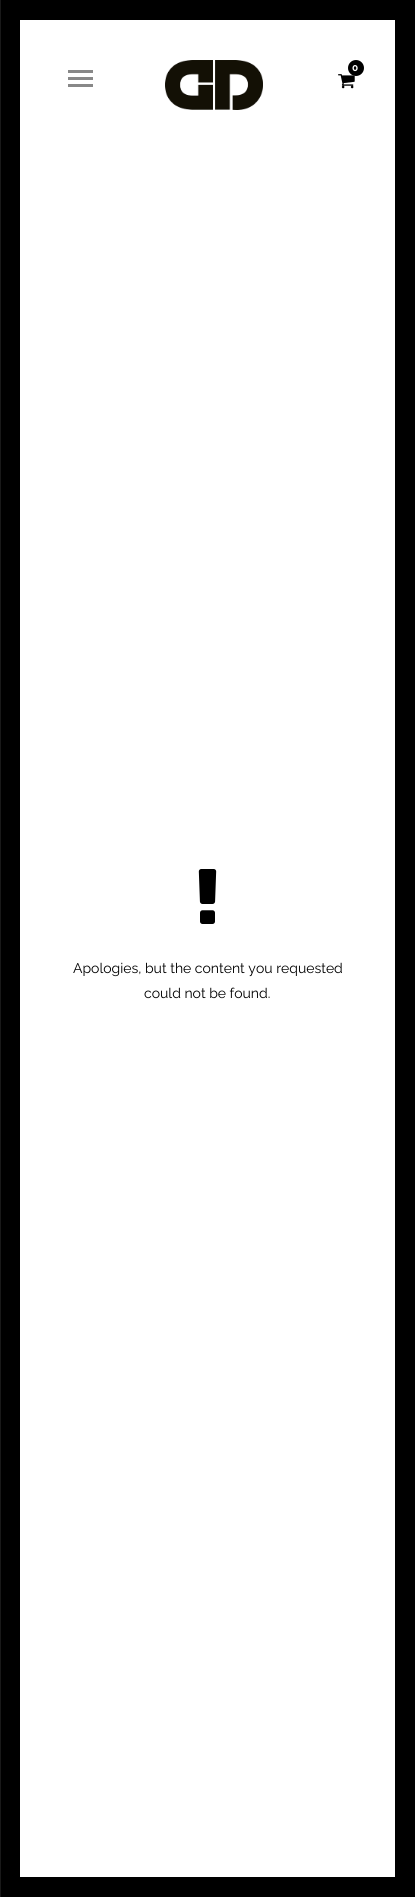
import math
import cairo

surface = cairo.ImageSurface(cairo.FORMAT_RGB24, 415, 1897)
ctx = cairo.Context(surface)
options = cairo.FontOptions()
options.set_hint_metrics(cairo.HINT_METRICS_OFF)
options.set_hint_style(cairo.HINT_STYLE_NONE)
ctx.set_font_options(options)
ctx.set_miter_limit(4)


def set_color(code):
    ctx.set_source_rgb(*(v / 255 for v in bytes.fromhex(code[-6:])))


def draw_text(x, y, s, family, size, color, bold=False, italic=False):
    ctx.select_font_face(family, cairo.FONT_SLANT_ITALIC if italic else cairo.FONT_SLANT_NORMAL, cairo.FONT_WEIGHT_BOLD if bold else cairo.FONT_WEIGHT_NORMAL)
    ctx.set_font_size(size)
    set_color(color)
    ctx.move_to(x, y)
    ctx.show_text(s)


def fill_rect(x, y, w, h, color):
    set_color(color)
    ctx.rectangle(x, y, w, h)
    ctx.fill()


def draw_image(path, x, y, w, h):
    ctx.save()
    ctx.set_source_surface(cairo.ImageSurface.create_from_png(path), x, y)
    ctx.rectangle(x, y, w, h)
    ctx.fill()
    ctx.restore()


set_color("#ffffff")
ctx.paint()
fill_rect(0, 0, 1, 1897, "#191919")
fill_rect(1, 0, 414, 20, "#000000")
fill_rect(1, 20, 19, 1877, "#000000")
draw_image("assets/img1.png", 165, 60, 98, 50)
draw_image("assets/img2.png", 338, 74, 17, 15)
ctx.arc(356, 68, 8, 0, 2 * math.pi)
ctx.fill()
draw_text(352, 71, "0", "Raleway", 10, "#ffffff", bold=True)
fill_rect(68, 70, 25, 3, "#888888")
fill_rect(68, 77, 25, 3, "#888888")
fill_rect(68, 84, 25, 3, "#888888")
draw_image("assets/img3.png", 198, 869, 19, 55)
draw_text(73, 973, "Apologies, but the content you requested", "Raleway", 14, "#000000")
draw_text(144, 998, "could not be found.", "Raleway", 14, "#000000")
fill_rect(395, 20, 20, 1877, "#000000")
fill_rect(20, 1877, 375, 20, "#000000")
surface.write_to_png("output.png")
